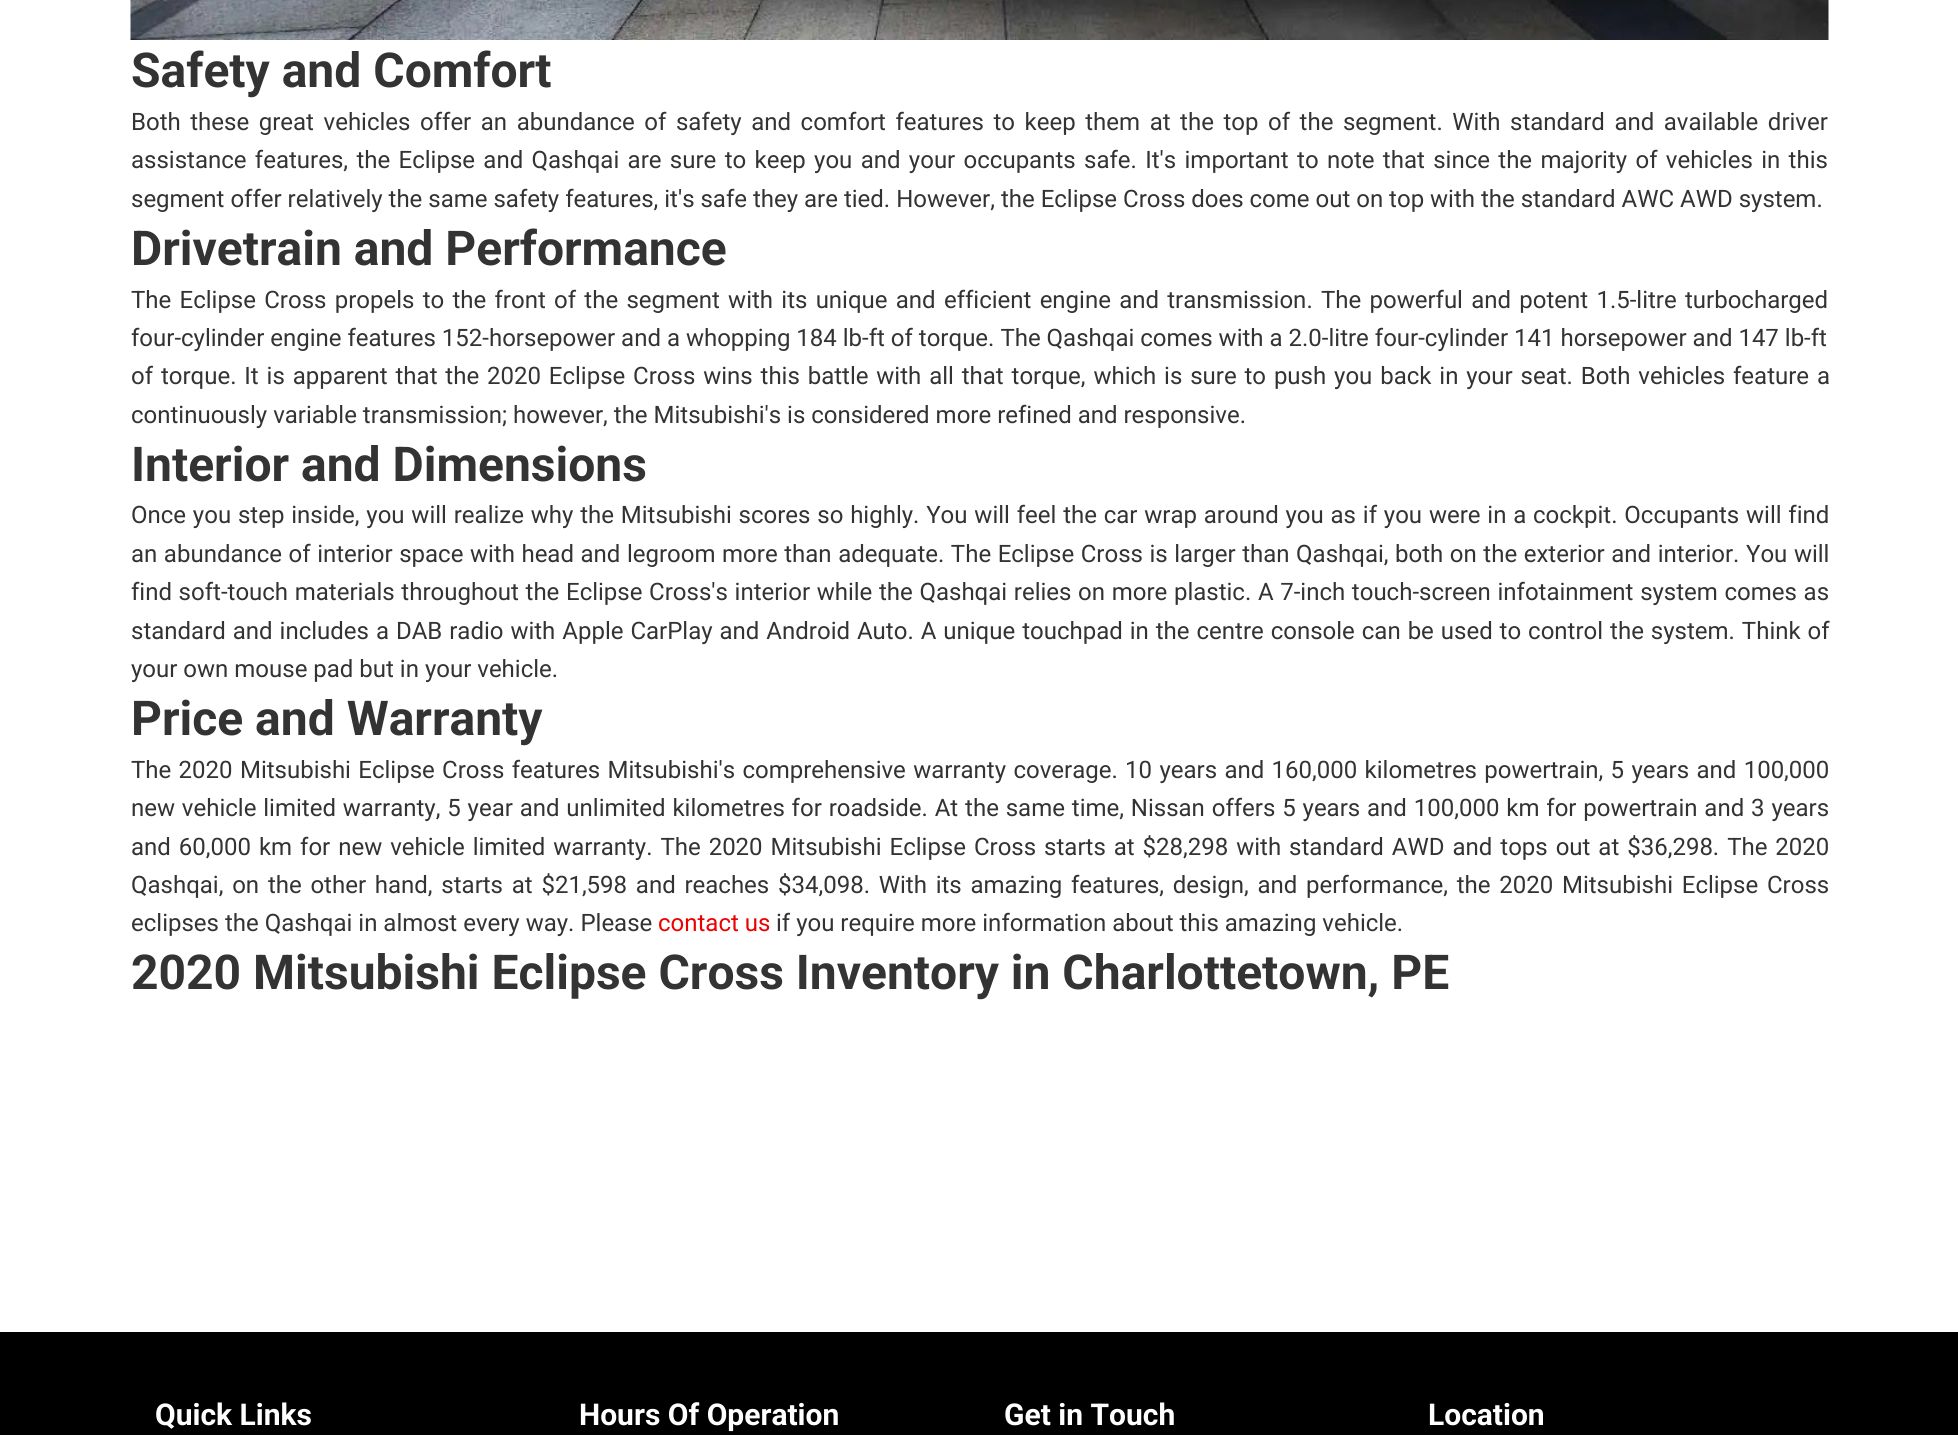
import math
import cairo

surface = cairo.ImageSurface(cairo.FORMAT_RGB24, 1958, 1435)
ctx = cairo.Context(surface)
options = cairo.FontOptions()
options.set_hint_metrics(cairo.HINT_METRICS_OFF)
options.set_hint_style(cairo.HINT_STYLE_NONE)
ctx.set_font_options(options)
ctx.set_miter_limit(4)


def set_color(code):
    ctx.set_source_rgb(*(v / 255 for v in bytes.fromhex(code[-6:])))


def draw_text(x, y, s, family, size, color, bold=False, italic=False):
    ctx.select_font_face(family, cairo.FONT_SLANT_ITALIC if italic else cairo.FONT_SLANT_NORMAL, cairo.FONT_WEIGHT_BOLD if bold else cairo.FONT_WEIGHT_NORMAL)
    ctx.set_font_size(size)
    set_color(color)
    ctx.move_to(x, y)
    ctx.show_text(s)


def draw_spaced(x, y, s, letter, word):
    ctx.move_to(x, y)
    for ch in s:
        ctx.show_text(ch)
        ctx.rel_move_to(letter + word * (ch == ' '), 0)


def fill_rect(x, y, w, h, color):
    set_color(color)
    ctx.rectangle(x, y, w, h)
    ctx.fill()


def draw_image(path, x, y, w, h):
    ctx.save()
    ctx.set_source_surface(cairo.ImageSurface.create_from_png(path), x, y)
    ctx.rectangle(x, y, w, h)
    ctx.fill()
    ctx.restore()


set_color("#ffffff")
ctx.paint()
draw_image("assets/img1.png", 130, 0, 1699, 40)
draw_text(131, 87, "Safety and Comfort", "Roboto", 48, "#333333", bold=True)
ctx.select_font_face("Roboto")
ctx.set_font_size(24)
draw_spaced(131, 130, "Both these great vehicles offer an abundance of safety and comfort features to keep them at the top of the segment. With standard and available driver", 0, 3.6)
draw_spaced(131, 168, "assistance features, the Eclipse and Qashqai are sure to keep you and your occupants safe. It's important to note that since the majority of vehicles in this", 0, 2.4)
draw_text(131, 207, "segment offer relatively the same safety features, it's safe they are tied. However, the Eclipse Cross does come out on top with the standard AWC AWD system.", "Roboto", 24, "#333333")
draw_text(131, 265, "Drivetrain and Performance", "Roboto", 48, "#333333", bold=True)
ctx.select_font_face("Roboto")
ctx.set_font_size(24)
draw_spaced(131, 308, "The Eclipse Cross propels to the front of the segment with its unique and efficient engine and transmission. The powerful and potent 1.5-litre turbocharged", 0, 2.3)
draw_text(131, 346, "four-cylinder engine features 152-horsepower and a whopping 184 lb-ft of torque. The Qashqai comes with a 2.0-litre four-cylinder 141 horsepower and 147 lb-ft", "Roboto", 24, "#333333")
draw_spaced(131, 384, "of torque. It is apparent that the 2020 Eclipse Cross wins this battle with all that torque, which is sure to push you back in your seat. Both vehicles feature a", 0, 1.9)
draw_text(131, 423, "continuously variable transmission; however, the Mitsubishi's is considered more refined and responsive.", "Roboto", 24, "#333333")
draw_text(131, 481, "Interior and Dimensions", "Roboto", 48, "#333333", bold=True)
ctx.select_font_face("Roboto")
ctx.set_font_size(24)
draw_spaced(131, 523, "Once you step inside, you will realize why the Mitsubishi scores so highly. You will feel the car wrap around you as if you were in a cockpit. Occupants will find", 0, 0.85)
draw_spaced(131, 562, "an abundance of interior space with head and legroom more than adequate. The Eclipse Cross is larger than Qashqai, both on the exterior and interior. You will", 0, 0.6)
draw_spaced(131, 600, "find soft-touch materials throughout the Eclipse Cross's interior while the Qashqai relies on more plastic. A 7-inch touch-screen infotainment system comes as", 0, 0.7)
draw_spaced(131, 639, "standard and includes a DAB radio with Apple CarPlay and Android Auto. A unique touchpad in the centre console can be used to control the system. Think of", 0, 1)
draw_text(131, 677, "your own mouse pad but in your vehicle.", "Roboto", 24, "#333333")
draw_text(131, 735, "Price and Warranty", "Roboto", 48, "#333333", bold=True)
ctx.select_font_face("Roboto")
ctx.set_font_size(24)
draw_spaced(131, 778, "The 2020 Mitsubishi Eclipse Cross features Mitsubishi's comprehensive warranty coverage. 10 years and 160,000 kilometres powertrain, 5 years and 100,000", 0, 1.4)
draw_spaced(131, 816, "new vehicle limited warranty, 5 year and unlimited kilometres for roadside. At the same time, Nissan offers 5 years and 100,000 km for powertrain and 3 years", 0, 0.9)
draw_spaced(131, 855, "and 60,000 km for new vehicle limited warranty. The 2020 Mitsubishi Eclipse Cross starts at $28,298 with standard AWD and tops out at $36,298. The 2020", 0, 2)
draw_spaced(131, 893, "Qashqai, on the other hand, starts at $21,598 and reaches $34,098. With its amazing features, design, and performance, the 2020 Mitsubishi Eclipse Cross", 0, 2.8)
draw_text(131, 931, "eclipses the Qashqai in almost every way. Please", "Roboto", 24, "#333333")
draw_text(658, 931, "contact us", "Roboto", 24, "#ed0000")
draw_text(776, 931, "if you require more information about this amazing vehicle.", "Roboto", 24, "#333333")
draw_text(131, 989, "2020 Mitsubishi Eclipse Cross Inventory in Charlottetown, PE", "Roboto", 48, "#333333", bold=True)
fill_rect(0, 1332, 1958, 103, "#000000")
draw_text(155, 1425, "Quick Links", "Roboto", 30, "#ffffff", bold=True)
draw_text(579, 1425, "Hours Of Operation", "Roboto", 30, "#ffffff", bold=True)
draw_text(1004, 1425, "Get in Touch", "Roboto", 30, "#ffffff", bold=True)
draw_text(1428, 1425, "Location", "Roboto", 30, "#ffffff", bold=True)
surface.write_to_png("output.png")
